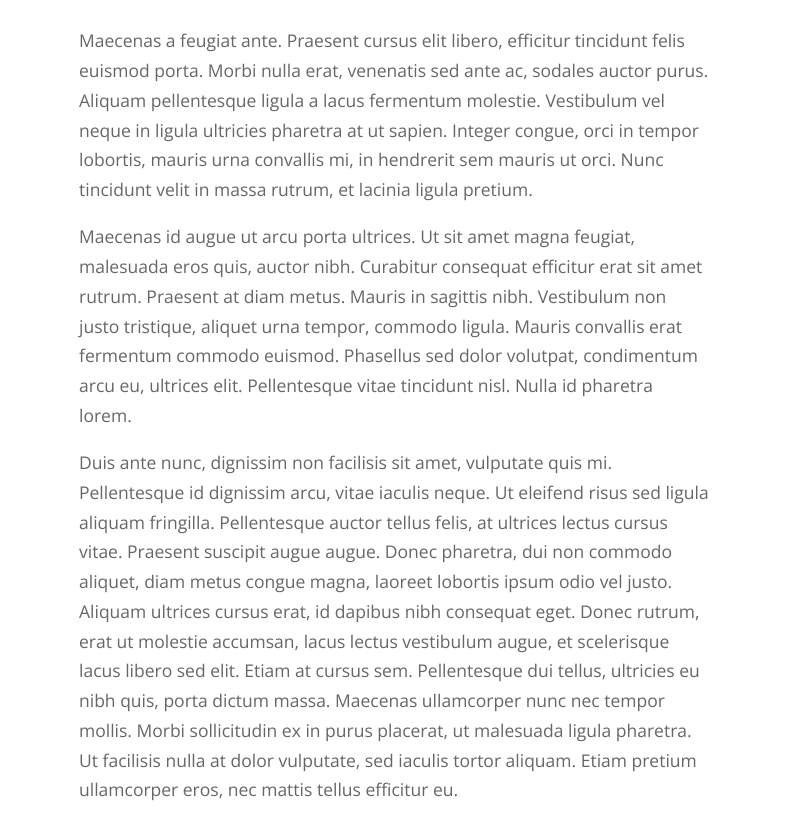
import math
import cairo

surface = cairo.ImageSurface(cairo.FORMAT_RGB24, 787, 828)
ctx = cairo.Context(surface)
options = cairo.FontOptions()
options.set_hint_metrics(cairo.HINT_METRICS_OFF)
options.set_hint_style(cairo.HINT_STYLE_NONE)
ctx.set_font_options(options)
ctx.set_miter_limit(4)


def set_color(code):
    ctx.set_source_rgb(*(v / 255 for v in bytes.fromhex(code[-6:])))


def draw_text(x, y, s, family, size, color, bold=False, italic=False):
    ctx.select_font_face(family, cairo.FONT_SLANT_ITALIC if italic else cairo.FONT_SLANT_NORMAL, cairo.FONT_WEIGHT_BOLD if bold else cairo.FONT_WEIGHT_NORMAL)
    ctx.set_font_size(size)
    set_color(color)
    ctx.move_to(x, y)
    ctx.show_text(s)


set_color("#ffffff")
ctx.paint()
draw_text(79, 47, "Maecenas a feugiat ante. Praesent cursus elit libero, efficitur tincidunt felis", "Open Sans", 17.5, "#666666")
draw_text(79, 77, "euismod porta. Morbi nulla erat, venenatis sed ante ac, sodales auctor purus.", "Open Sans", 17.5, "#666666")
draw_text(79, 107, "Aliquam pellentesque ligula a lacus fermentum molestie. Vestibulum vel", "Open Sans", 17.5, "#666666")
draw_text(79, 137, "neque in ligula ultricies pharetra at ut sapien. Integer congue, orci in tempor", "Open Sans", 17.5, "#666666")
draw_text(79, 166, "lobortis, mauris urna convallis mi, in hendrerit sem mauris ut orci. Nunc", "Open Sans", 17.5, "#666666")
draw_text(79, 196, "tincidunt velit in massa rutrum, et lacinia ligula pretium.", "Open Sans", 17.5, "#666666")
draw_text(79, 243, "Maecenas id augue ut arcu porta ultrices. Ut sit amet magna feugiat,", "Open Sans", 17.5, "#666666")
draw_text(79, 273, "malesuada eros quis, auctor nibh. Curabitur consequat efficitur erat sit amet", "Open Sans", 17.5, "#666666")
draw_text(79, 303, "rutrum. Praesent at diam metus. Mauris in sagittis nibh. Vestibulum non", "Open Sans", 17.5, "#666666")
draw_text(79, 333, "justo tristique, aliquet urna tempor, commodo ligula. Mauris convallis erat", "Open Sans", 17.5, "#666666")
draw_text(79, 362, "fermentum commodo euismod. Phasellus sed dolor volutpat, condimentum", "Open Sans", 17.5, "#666666")
draw_text(79, 392, "arcu eu, ultrices elit. Pellentesque vitae tincidunt nisl. Nulla id pharetra", "Open Sans", 17.5, "#666666")
draw_text(79, 422, "lorem.", "Open Sans", 17.5, "#666666")
draw_text(79, 469, "Duis ante nunc, dignissim non facilisis sit amet, vulputate quis mi.", "Open Sans", 17.5, "#666666")
draw_text(79, 499, "Pellentesque id dignissim arcu, vitae iaculis neque. Ut eleifend risus sed ligula", "Open Sans", 17.5, "#666666")
draw_text(79, 529, "aliquam fringilla. Pellentesque auctor tellus felis, at ultrices lectus cursus", "Open Sans", 17.5, "#666666")
draw_text(79, 558, "vitae. Praesent suscipit augue augue. Donec pharetra, dui non commodo", "Open Sans", 17.5, "#666666")
draw_text(79, 588, "aliquet, diam metus congue magna, laoreet lobortis ipsum odio vel justo.", "Open Sans", 17.5, "#666666")
draw_text(79, 618, "Aliquam ultrices cursus erat, id dapibus nibh consequat eget. Donec rutrum,", "Open Sans", 17.5, "#666666")
draw_text(79, 648, "erat ut molestie accumsan, lacus lectus vestibulum augue, et scelerisque", "Open Sans", 17.5, "#666666")
draw_text(79, 677, "lacus libero sed elit. Etiam at cursus sem. Pellentesque dui tellus, ultricies eu", "Open Sans", 17.5, "#666666")
draw_text(79, 707, "nibh quis, porta dictum massa. Maecenas ullamcorper nunc nec tempor", "Open Sans", 17.5, "#666666")
draw_text(79, 737, "mollis. Morbi sollicitudin ex in purus placerat, ut malesuada ligula pharetra.", "Open Sans", 17.5, "#666666")
draw_text(79, 767, "Ut facilisis nulla at dolor vulputate, sed iaculis tortor aliquam. Etiam pretium", "Open Sans", 17.5, "#666666")
draw_text(79, 796, "ullamcorper eros, nec mattis tellus efficitur eu.", "Open Sans", 17.5, "#666666")
surface.write_to_png("output.png")
